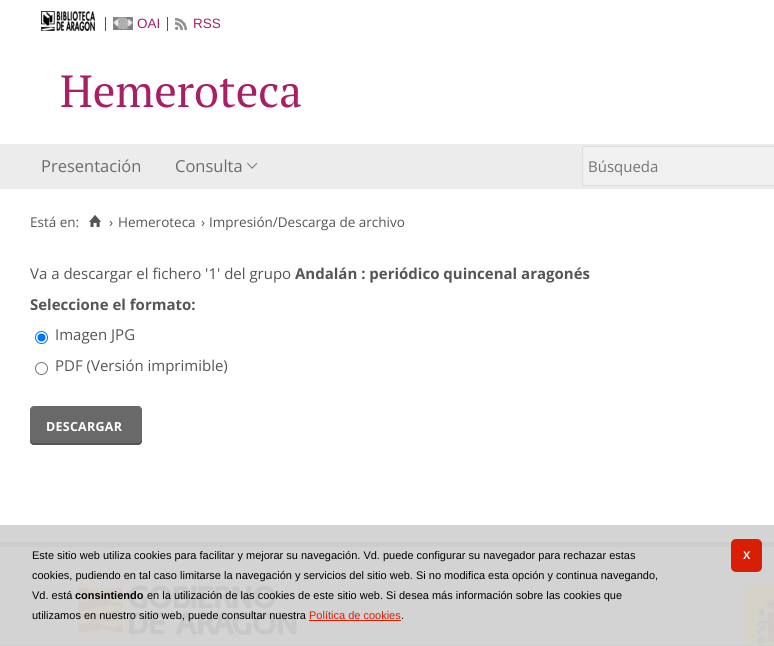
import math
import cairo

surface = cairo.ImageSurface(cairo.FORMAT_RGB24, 774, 646)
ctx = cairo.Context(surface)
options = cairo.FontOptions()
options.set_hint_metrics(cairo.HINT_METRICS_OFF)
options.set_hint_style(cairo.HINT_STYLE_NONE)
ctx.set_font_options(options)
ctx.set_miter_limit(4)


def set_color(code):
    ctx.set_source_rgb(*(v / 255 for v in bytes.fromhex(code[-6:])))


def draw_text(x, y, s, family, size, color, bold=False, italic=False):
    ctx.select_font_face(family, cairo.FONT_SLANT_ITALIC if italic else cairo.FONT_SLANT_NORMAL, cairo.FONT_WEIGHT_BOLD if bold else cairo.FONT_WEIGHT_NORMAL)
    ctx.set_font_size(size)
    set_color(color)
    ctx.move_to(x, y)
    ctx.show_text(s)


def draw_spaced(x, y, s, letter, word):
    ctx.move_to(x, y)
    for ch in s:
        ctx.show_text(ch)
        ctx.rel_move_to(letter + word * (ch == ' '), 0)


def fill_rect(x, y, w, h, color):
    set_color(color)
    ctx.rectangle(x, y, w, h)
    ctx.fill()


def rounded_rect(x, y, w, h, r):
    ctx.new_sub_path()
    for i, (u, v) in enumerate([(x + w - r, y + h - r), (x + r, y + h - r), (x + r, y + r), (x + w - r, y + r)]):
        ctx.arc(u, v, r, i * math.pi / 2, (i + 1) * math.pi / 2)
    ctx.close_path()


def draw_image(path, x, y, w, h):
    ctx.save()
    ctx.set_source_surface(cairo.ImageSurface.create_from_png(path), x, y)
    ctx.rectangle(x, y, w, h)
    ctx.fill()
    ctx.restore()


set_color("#ffffff")
ctx.paint()
fill_rect(0, 525, 774, 17, "#d4d4d4")
draw_image("assets/img1.png", 41, 11, 54, 20)
fill_rect(105, 17, 1, 14, "#a91f64")
draw_image("assets/img2.png", 113, 17, 20, 13)
draw_text(137, 28, "OAI", "Liberation Sans", 13.5, "#a91f64")
fill_rect(167, 17, 1, 14, "#a91f64")
draw_image("assets/img3.png", 175, 18, 12, 12)
draw_text(193, 28, "RSS", "Liberation Sans", 13.5, "#a91f64")
draw_text(60, 107, "Hemeroteca", "PT Serif", 45, "#a91f64")
fill_rect(0, 144, 774, 45, "#ececec")
draw_text(41, 172, "Presentación", "Open Sans", 16.5, "#6b6b6b")
draw_text(175, 172, "Consulta", "Open Sans", 16.5, "#6b6b6b")
draw_image("assets/img4.png", 247, 162, 11, 7)
set_color("#f0f0f0")
rounded_rect(582.5, 146.5, 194, 39, 1.5)
ctx.fill_preserve()
set_color("#dddddd")
ctx.set_line_width(1)
ctx.stroke()
draw_text(588, 172, "Búsqueda", "Open Sans", 15, "#757575")
draw_text(30, 227, "Está en:", "Open Sans", 13.5, "#555555")
draw_image("assets/img5.png", 89, 215, 12, 12)
draw_text(109, 227, "›", "Open Sans", 13.5, "#555555")
draw_text(118, 227, "Hemeroteca", "Open Sans", 13.5, "#555555")
draw_text(201, 227, "›", "Open Sans", 13.5, "#555555")
draw_text(209, 227, "Impresión/Descarga de archivo", "Open Sans", 13.5, "#555555")
draw_text(30, 279, "Va a descargar el fichero '1' del grupo", "Open Sans", 15, "#555555")
draw_text(295, 279, "Andalán : periódico quincenal aragonés", "Open Sans", 15, "#555555", bold=True)
draw_text(30, 310, "Seleccione el formato:", "Open Sans", 15, "#555555", bold=True)
ctx.new_path()
ctx.arc(41.5, 337.5, 6, 0, 2 * math.pi)
set_color("#0075ff")
ctx.stroke()
ctx.arc(41.5, 337.5, 4, 0, 2 * math.pi)
ctx.fill()
draw_text(55, 340, "Imagen JPG", "Open Sans", 15, "#555555")
ctx.new_path()
ctx.arc(41.5, 368.5, 6, 0, 2 * math.pi)
set_color("#767676")
ctx.stroke()
draw_text(55, 371, "PDF (Versión imprimible)", "Open Sans", 15, "#555555")
set_color("#696969")
rounded_rect(30, 406, 112, 39, 4)
ctx.fill()
set_color("#555555")
ctx.new_path()
ctx.move_to(30, 439)
ctx.line_to(30, 441)
ctx.curve_to(30, 443, 32, 445, 34, 445)
ctx.line_to(138, 445)
ctx.curve_to(140, 445, 142, 443, 142, 441)
ctx.line_to(142, 439)
ctx.curve_to(142, 441, 140, 443, 138, 443)
ctx.line_to(34, 443)
ctx.curve_to(32, 443, 30, 441, 30, 439)
ctx.close_path()
ctx.fill()
ctx.select_font_face("Open Sans", cairo.FONT_SLANT_NORMAL, cairo.FONT_WEIGHT_BOLD)
ctx.set_font_size(12.5)
set_color("#ffffff")
draw_spaced(46, 431, "DESCARGAR", 0.25, 0)
fill_rect(0, 547, 774, 99, "#d3d3d3")
fill_rect(0, 542, 774, 5, "#cdcdcd")
draw_image("assets/img6.png", 76, 585, 221, 50)
draw_image("assets/img7.png", 745, 585, 29, 61)
ctx.new_path()
ctx.move_to(0, 645.5)
ctx.line_to(774, 645.5)
set_color("#cccccc")
ctx.set_dash([1, 1])
ctx.stroke()
draw_text(32, 559, "Este sitio web utiliza cookies para facilitar y mejorar su navegación. Vd. puede configurar su navegador para rechazar estas", "Liberation Sans", 11, "#000000")
draw_text(32, 579, "cookies, pudiendo en tal caso limitarse la navegación y servicios del sitio web. Si no modifica esta opción y continua navegando,", "Liberation Sans", 11, "#000000")
draw_text(32, 599, "Vd. está", "Liberation Sans", 11, "#000000")
draw_text(75, 599, "consintiendo", "Liberation Sans", 11, "#000000", bold=True)
draw_text(147, 599, "en la utilización de las cookies de este sitio web. Si desea más información sobre las cookies que", "Liberation Sans", 11, "#000000")
draw_text(32, 619, "utilizamos en nuestro sitio web, puede consultar nuestra", "Liberation Sans", 11, "#000000")
draw_text(309, 619, "Política de cookies", "Liberation Sans", 11, "#d81e05")
draw_text(401, 619, ".", "Liberation Sans", 11, "#000000")
fill_rect(309, 620, 92, 1, "#d81e05")
rounded_rect(731, 539, 31, 33, 5)
ctx.fill()
ctx.select_font_face("Liberation Sans", cairo.FONT_SLANT_NORMAL, cairo.FONT_WEIGHT_BOLD)
set_color("#ffffff")
draw_spaced(743, 559, "X", -1, 0)
surface.write_to_png("output.png")
